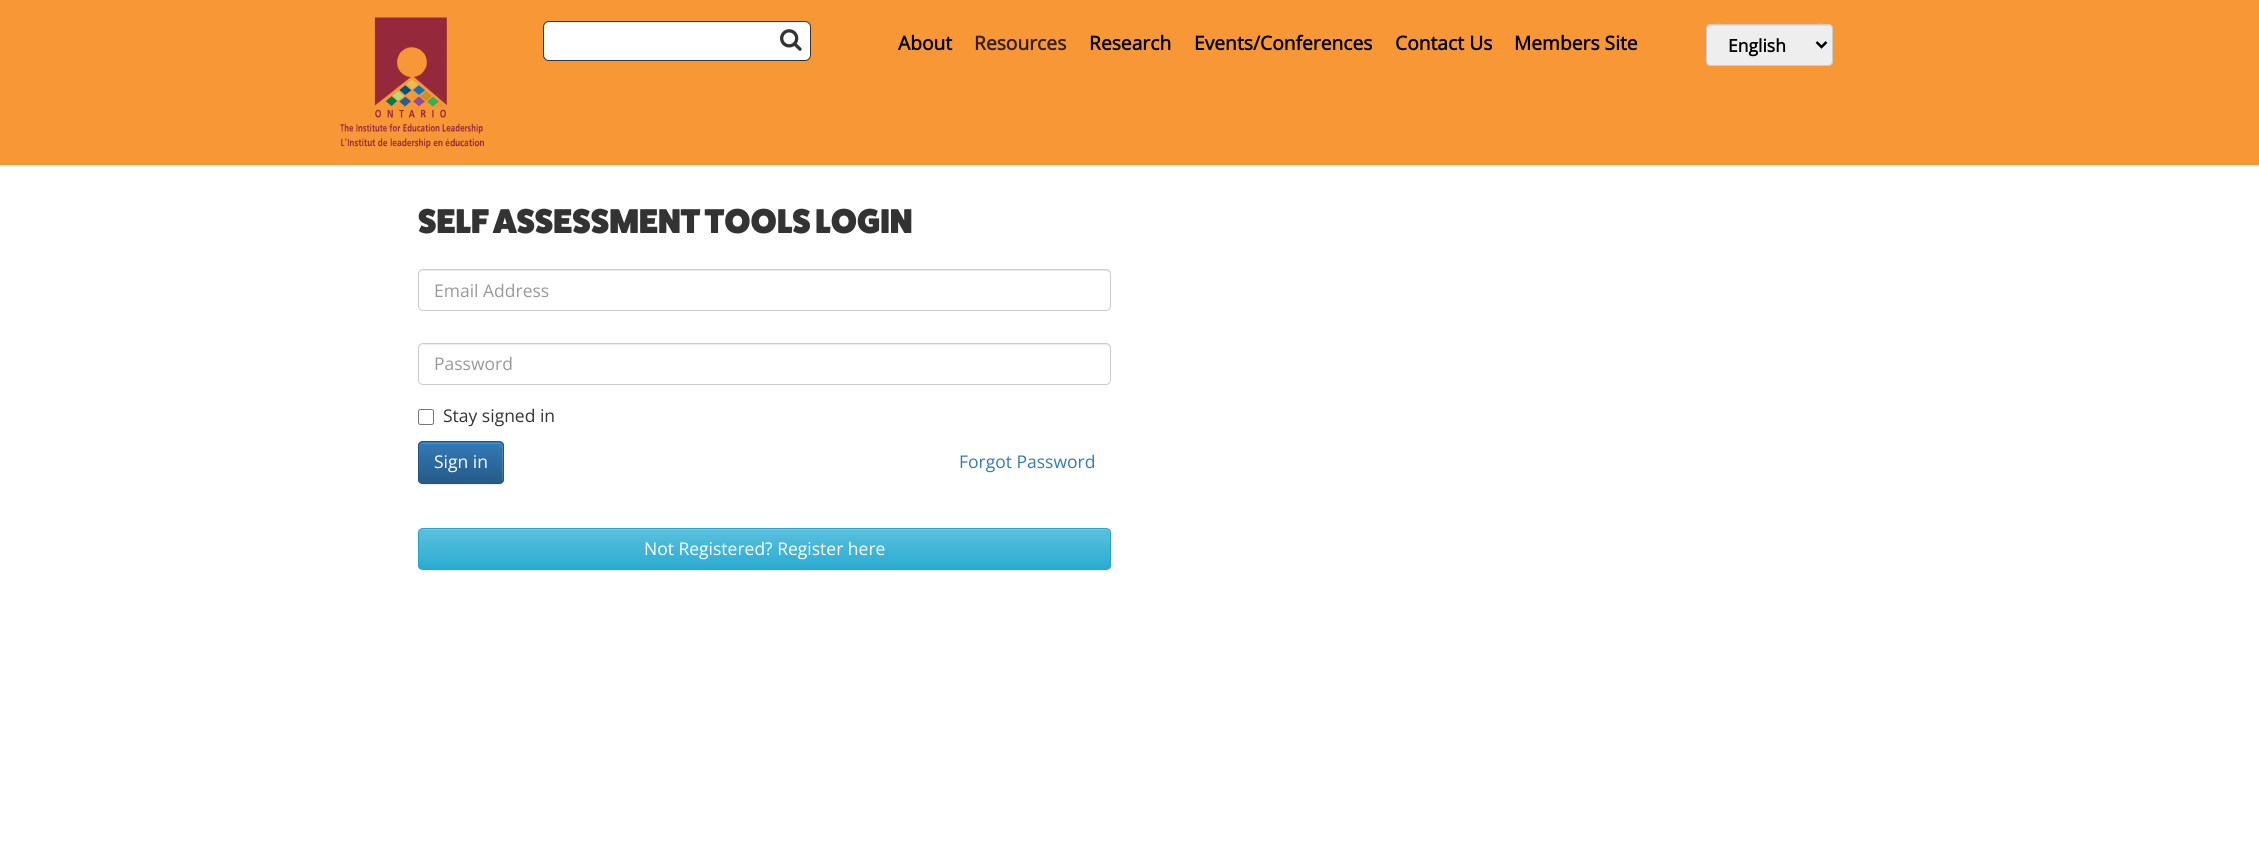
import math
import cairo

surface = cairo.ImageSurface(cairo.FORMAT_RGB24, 2259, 862)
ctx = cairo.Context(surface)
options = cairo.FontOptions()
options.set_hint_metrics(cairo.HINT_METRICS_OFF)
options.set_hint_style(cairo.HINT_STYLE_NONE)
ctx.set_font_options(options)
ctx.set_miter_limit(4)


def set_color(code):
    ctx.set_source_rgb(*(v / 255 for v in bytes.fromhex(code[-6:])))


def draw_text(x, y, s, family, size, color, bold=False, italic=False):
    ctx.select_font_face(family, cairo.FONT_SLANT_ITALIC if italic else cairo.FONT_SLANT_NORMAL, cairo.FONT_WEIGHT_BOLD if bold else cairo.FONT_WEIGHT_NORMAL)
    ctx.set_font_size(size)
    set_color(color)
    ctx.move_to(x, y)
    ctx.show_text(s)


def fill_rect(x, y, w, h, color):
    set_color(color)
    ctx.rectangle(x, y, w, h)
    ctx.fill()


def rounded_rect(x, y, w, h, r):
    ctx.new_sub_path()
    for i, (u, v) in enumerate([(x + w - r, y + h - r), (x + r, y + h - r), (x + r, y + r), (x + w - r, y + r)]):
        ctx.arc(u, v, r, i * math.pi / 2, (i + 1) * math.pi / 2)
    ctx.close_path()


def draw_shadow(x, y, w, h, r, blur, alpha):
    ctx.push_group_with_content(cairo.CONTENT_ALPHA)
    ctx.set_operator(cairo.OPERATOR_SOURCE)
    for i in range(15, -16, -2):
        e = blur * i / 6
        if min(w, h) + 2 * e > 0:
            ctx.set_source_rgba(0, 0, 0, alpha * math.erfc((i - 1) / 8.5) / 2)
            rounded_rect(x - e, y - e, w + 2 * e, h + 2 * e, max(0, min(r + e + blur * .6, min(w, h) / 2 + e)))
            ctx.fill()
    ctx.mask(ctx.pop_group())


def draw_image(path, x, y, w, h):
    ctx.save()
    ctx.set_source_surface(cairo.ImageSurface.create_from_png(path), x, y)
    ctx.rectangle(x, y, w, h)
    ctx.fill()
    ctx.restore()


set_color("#ffffff")
ctx.paint()
fill_rect(0, 0, 2259, 165, "#f79735")
draw_image("assets/img1.png", 340, 17, 144, 132)
set_color("#ffffff")
rounded_rect(543.5, 21.5, 267, 39, 5.5)
ctx.fill_preserve()
set_color("#333333")
ctx.set_line_width(1)
ctx.stroke()
draw_image("assets/img2.png", 780, 29, 22, 22)
draw_text(898, 50, "About", "Open Sans", 19.25, "#000000", bold=True)
draw_text(974, 50, "Resources", "Open Sans", 19.25, "#311e0b", bold=True)
draw_text(1089, 50, "Research", "Open Sans", 19.25, "#000000", bold=True)
draw_text(1194, 50, "Events/Conferences", "Open Sans", 19.25, "#000000", bold=True)
draw_text(1395, 50, "Contact Us", "Open Sans", 19.25, "#000000", bold=True)
draw_text(1514, 50, "Members Site", "Open Sans", 19.25, "#000000", bold=True)
set_color("#eeeeee")
rounded_rect(1706, 24, 127, 42, 5)
ctx.fill()
set_color("#dcdcdc")
ctx.new_path()
ctx.move_to(1711, 26)
ctx.line_to(1828, 26)
ctx.curve_to(1830, 26, 1831, 28, 1831, 30)
ctx.curve_to(1831, 20, 1811, 25, 1808, 25)
ctx.line_to(1731, 25)
ctx.curve_to(1728, 25, 1708, 20, 1708, 30)
ctx.curve_to(1708, 28, 1709, 26, 1711, 26)
ctx.close_path()
ctx.fill()
rounded_rect(1706.5, 24.5, 126, 41, 4.5)
set_color("#cccccc")
ctx.stroke()
ctx.new_path()
ctx.move_to(1816.5, 42)
ctx.line_to(1821.5, 47)
ctx.line_to(1826.5, 42)
set_color("#000000")
ctx.set_line_width(2.5)
ctx.stroke()
draw_text(1728, 52, "English", "Open Sans", 17.5, "#000000", bold=True)
draw_text(418, 233, "SELF ASSESSMENT TOOLS LOGIN", "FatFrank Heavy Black", 34.5, "#333333")
set_color("#ececec")
ctx.new_path()
ctx.move_to(422, 271)
ctx.line_to(1106, 271)
ctx.curve_to(1108, 271, 1110, 273, 1110, 275)
ctx.curve_to(1110, 272, 1109, 270, 1106, 270)
ctx.line_to(423, 270)
ctx.line_to(420, 271)
ctx.line_to(419, 272)
ctx.line_to(419, 275)
ctx.curve_to(419, 273, 420, 271, 422, 271)
ctx.close_path()
ctx.fill()
rounded_rect(418.5, 269.5, 692, 41, 4.5)
set_color("#cccccc")
ctx.set_line_width(1)
ctx.stroke()
draw_text(434, 297, "Email Address", "Open Sans", 17.5, "#999999")
set_color("#ececec")
ctx.new_path()
ctx.move_to(422, 345)
ctx.line_to(1106, 345)
ctx.curve_to(1108, 345, 1110, 347, 1110, 349)
ctx.curve_to(1110, 346, 1109, 344, 1106, 344)
ctx.line_to(423, 344)
ctx.line_to(420, 345)
ctx.line_to(419, 346)
ctx.line_to(419, 349)
ctx.curve_to(419, 347, 420, 345, 422, 345)
ctx.close_path()
ctx.fill()
rounded_rect(418.5, 343.5, 692, 41, 4.5)
set_color("#cccccc")
ctx.stroke()
draw_text(434, 370, "Password", "Open Sans", 17.5, "#999999")
rounded_rect(418.5, 409.5, 15, 15, 2)
set_color("#767676")
ctx.stroke()
draw_text(443, 422, "Stay signed in", "Open Sans", 17.5, "#333333")
set_color("#000000")
draw_shadow(418, 443, 86, 42, 5, 0.5, 0.07)
set_color("#337ab7")
rounded_rect(418, 441, 86, 43, 5)
ctx.fill()
ctx.save()
rounded_rect(418, 441, 86, 43, 5)
ctx.clip()
gradient = cairo.LinearGradient(461, 443, 461, 483)
gradient.add_color_stop_rgba(0, 0.2, 0.478, 0.718, 1)
gradient.add_color_stop_rgba(1, 0.149, 0.353, 0.533, 1)
ctx.set_source(gradient)
ctx.rectangle(418, 443, 86, 40)
ctx.fill()
ctx.restore()
ctx.set_source_rgba(1, 1, 1, 0.15)
ctx.new_path()
ctx.move_to(422, 444)
ctx.line_to(499, 444)
ctx.curve_to(503, 444, 502, 451, 502, 453)
ctx.line_to(502, 482)
ctx.curve_to(502, 481, 503, 480, 503, 479)
ctx.line_to(503, 447)
ctx.curve_to(503, 445, 501, 443, 499, 443)
ctx.line_to(423, 443)
ctx.curve_to(421, 443, 419, 445, 419, 447)
ctx.line_to(419, 448)
ctx.curve_to(419, 445, 420, 444, 422, 444)
ctx.close_path()
ctx.fill()
rounded_rect(418.5, 441.5, 85, 42, 4.5)
set_color("#245580")
ctx.stroke()
draw_text(434, 468, "Sign in", "Open Sans", 17.5, "#ffffff")
draw_text(959, 468, "Forgot Password", "Open Sans", 17.5, "#337ab7")
set_color("#000000")
draw_shadow(418, 529, 693, 42, 5, 0.5, 0.07)
ctx.save()
rounded_rect(418, 528, 693, 42, 5)
ctx.clip()
gradient = cairo.LinearGradient(764, 529, 764, 569)
gradient.add_color_stop_rgba(0, 0.357, 0.753, 0.871, 1)
gradient.add_color_stop_rgba(1, 0.165, 0.671, 0.824, 1)
ctx.set_source(gradient)
ctx.rectangle(418, 529, 693, 40)
ctx.fill()
ctx.restore()
set_color("#73c9e3")
ctx.new_path()
ctx.move_to(422, 530)
ctx.line_to(1106, 530)
ctx.curve_to(1108, 530, 1110, 532, 1110, 534)
ctx.curve_to(1110, 531, 1109, 529, 1106, 529)
ctx.line_to(423, 529)
ctx.line_to(420, 530)
ctx.line_to(419, 531)
ctx.line_to(419, 534)
ctx.curve_to(419, 532, 420, 530, 422, 530)
ctx.close_path()
ctx.fill()
rounded_rect(418.5, 528.5, 692, 41, 4.5)
set_color("#28a4c9")
ctx.stroke()
draw_text(644, 555, "Not Registered? Register here", "Open Sans", 17.5, "#ffffff")
surface.write_to_png("output.png")
